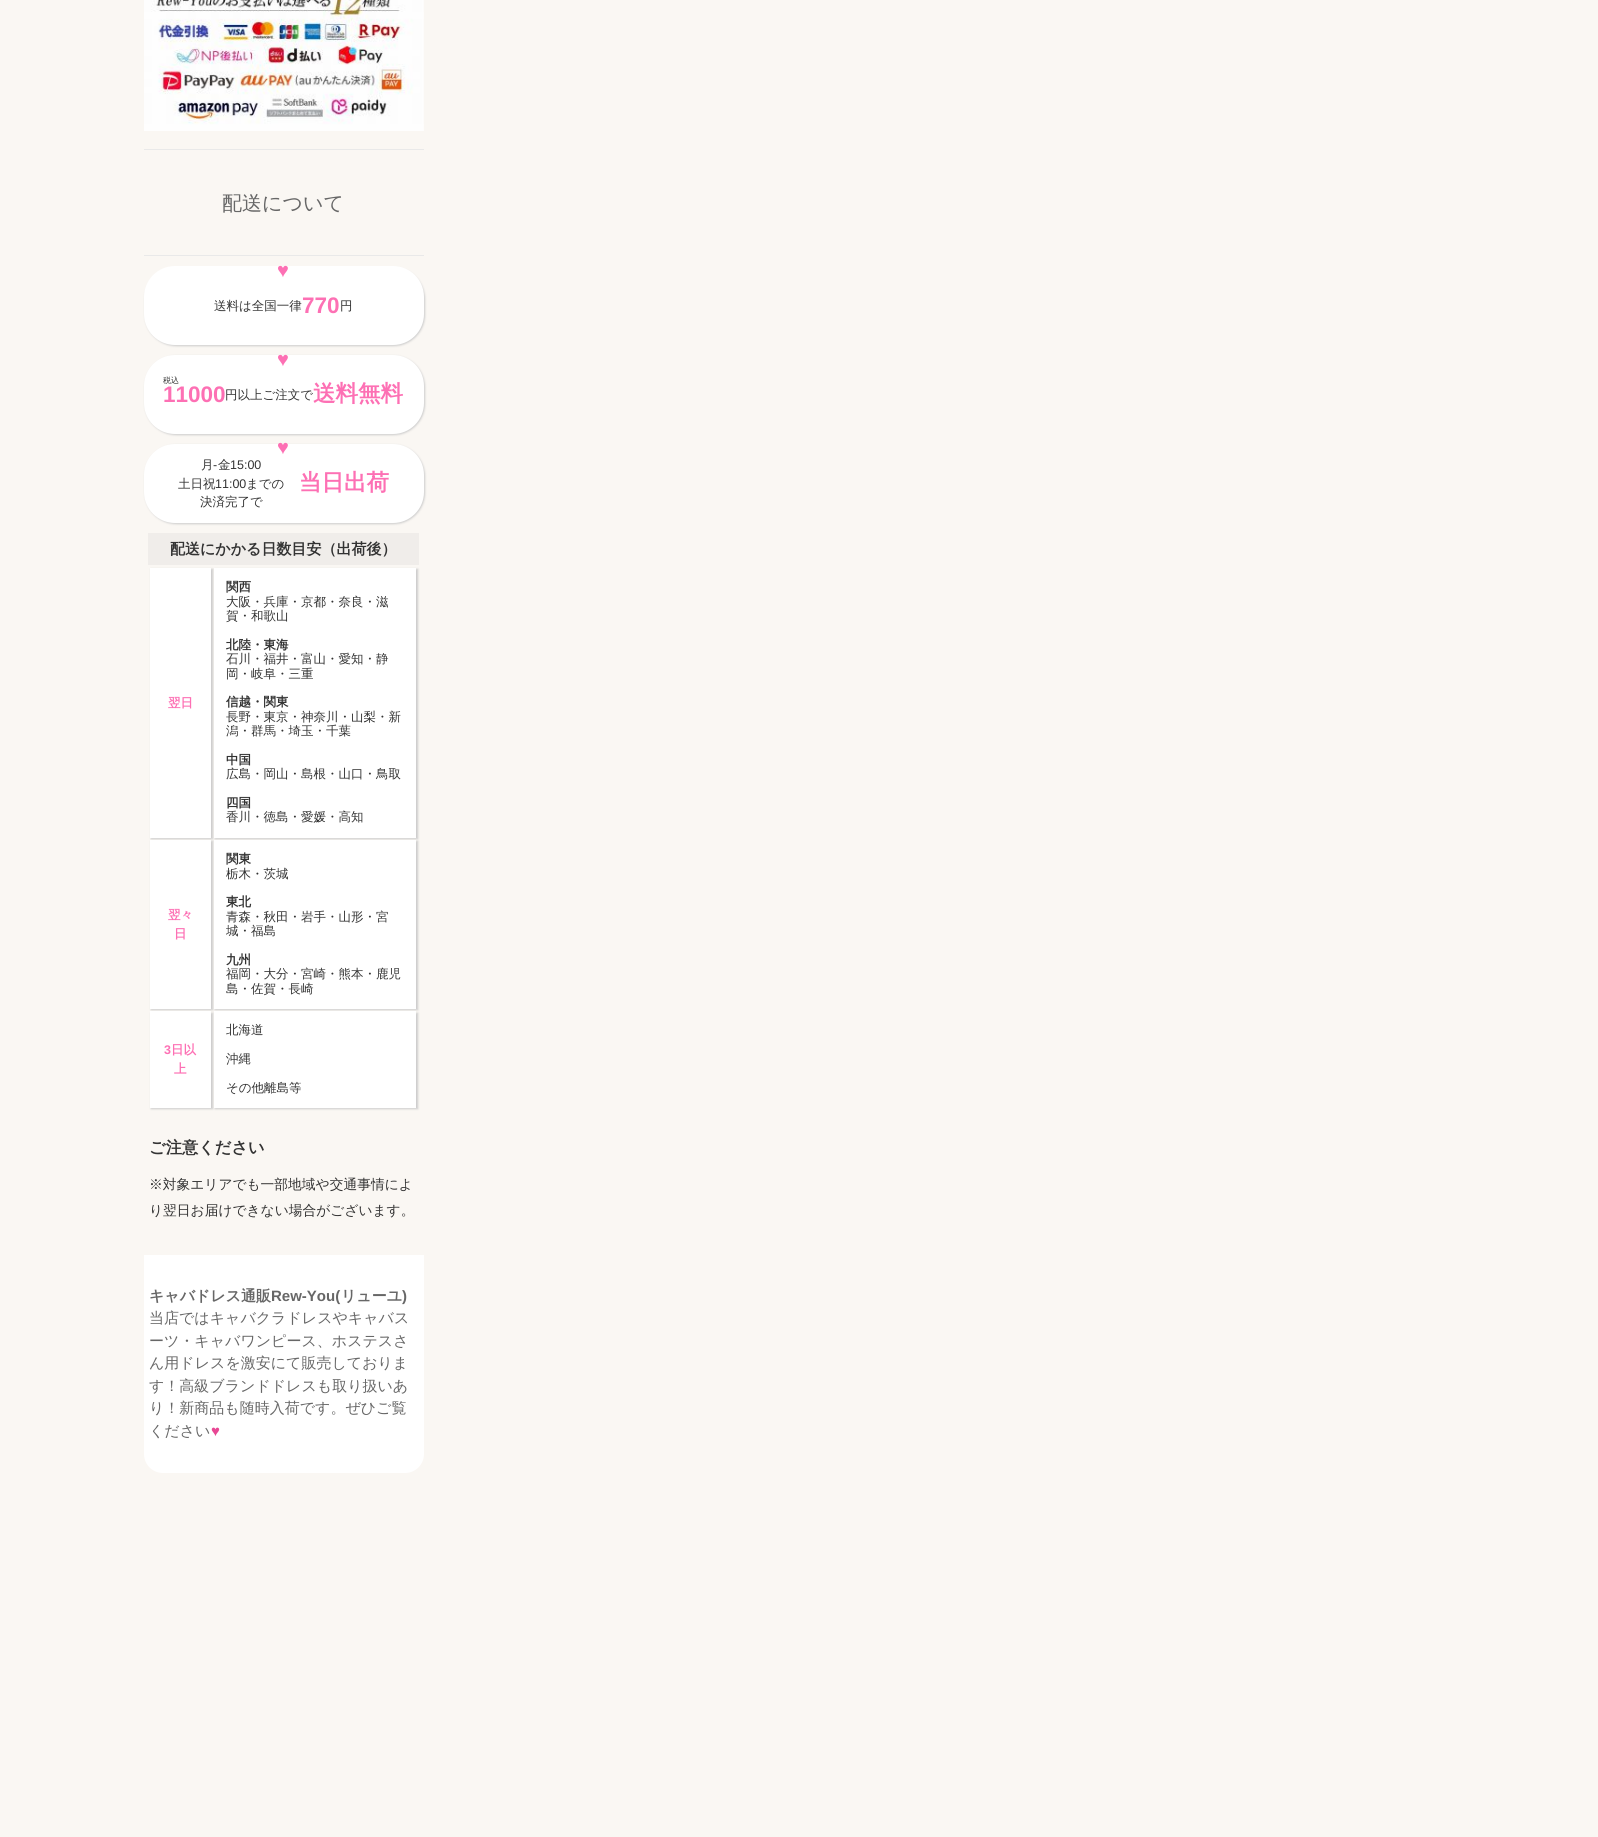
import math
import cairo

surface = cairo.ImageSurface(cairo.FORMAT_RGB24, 1598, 1837)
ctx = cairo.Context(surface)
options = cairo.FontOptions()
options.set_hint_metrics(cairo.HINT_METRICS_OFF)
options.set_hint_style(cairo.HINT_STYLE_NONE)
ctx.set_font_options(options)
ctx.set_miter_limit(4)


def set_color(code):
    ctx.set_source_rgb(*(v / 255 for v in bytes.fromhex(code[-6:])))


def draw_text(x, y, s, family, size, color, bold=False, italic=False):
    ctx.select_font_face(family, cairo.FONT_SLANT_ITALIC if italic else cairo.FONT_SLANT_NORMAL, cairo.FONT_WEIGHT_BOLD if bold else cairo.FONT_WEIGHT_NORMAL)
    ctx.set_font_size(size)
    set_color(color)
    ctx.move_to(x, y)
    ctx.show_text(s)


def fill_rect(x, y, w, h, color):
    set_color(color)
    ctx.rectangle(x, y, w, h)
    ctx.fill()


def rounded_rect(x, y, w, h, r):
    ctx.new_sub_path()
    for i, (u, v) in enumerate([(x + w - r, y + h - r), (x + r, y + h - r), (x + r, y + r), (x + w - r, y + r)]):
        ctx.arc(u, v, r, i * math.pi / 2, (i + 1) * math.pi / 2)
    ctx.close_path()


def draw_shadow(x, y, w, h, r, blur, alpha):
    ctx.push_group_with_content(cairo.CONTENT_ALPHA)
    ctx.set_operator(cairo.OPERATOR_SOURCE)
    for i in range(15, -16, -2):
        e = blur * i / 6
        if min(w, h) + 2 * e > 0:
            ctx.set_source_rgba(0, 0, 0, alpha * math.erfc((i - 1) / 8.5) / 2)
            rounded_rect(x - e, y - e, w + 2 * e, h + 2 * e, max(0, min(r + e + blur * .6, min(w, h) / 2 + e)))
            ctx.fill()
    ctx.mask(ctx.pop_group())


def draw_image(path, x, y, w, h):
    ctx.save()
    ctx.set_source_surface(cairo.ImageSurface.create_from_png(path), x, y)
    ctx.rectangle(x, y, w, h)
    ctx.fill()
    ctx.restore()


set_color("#faf7f3")
ctx.paint()
draw_image("assets/img1.png", 144, 0, 280, 131)
fill_rect(144, 149, 280, 1, "#e9e9e9")
fill_rect(144, 255, 280, 1, "#e9e9e9")
draw_text(222, 210, "配送について", "WenQuanYi Zen Hei Medium", 20, "#676767")
set_color("#cccccc")
draw_shadow(145, 268, 280, 78, 31, 1, 1)
set_color("#ffffff")
rounded_rect(144, 266, 280, 79, 31)
ctx.fill()
draw_text(277, 277, "♥", "Liberation Sans", 20, "#fd70b4")
draw_text(214, 310, "送料は全国一律", "WenQuanYi Zen Hei Medium", 12.5, "#333333")
draw_text(302, 313, "770", "Liberation Sans", 22.5, "#fd70b4", bold=True)
draw_text(340, 310, "円", "WenQuanYi Zen Hei Medium", 12.5, "#333333")
set_color("#cccccc")
draw_shadow(145, 356, 280, 79, 31, 1, 1)
set_color("#ffffff")
rounded_rect(144, 355, 280, 79, 31)
ctx.fill()
draw_text(277, 366, "♥", "Liberation Sans", 20, "#fd70b4")
draw_text(163, 383, "税込", "WenQuanYi Zen Hei Medium", 8, "#333333")
draw_text(163, 402, "11000", "Liberation Sans", 22.5, "#fd70b4", bold=True)
draw_text(225, 399, "円以上ご注文で", "WenQuanYi Zen Hei Medium", 12.5, "#333333")
draw_text(313, 401, "送料無料", "WenQuanYi Zen Hei", 22.5, "#fd70b4", bold=True)
set_color("#cccccc")
draw_shadow(145, 445, 280, 79, 31, 1, 1)
set_color("#ffffff")
rounded_rect(144, 444, 280, 79, 31)
ctx.fill()
draw_text(277, 454, "♥", "Liberation Sans", 20, "#fd70b4")
draw_text(201, 469, "月", "WenQuanYi Zen Hei Medium", 12.5, "#333333")
draw_text(213, 469, "-", "Liberation Sans", 12.5, "#333333")
draw_text(218, 469, "金", "WenQuanYi Zen Hei Medium", 12.5, "#333333")
draw_text(230, 469, "15:00", "Liberation Sans", 12.5, "#333333")
draw_text(178, 488, "土日祝", "WenQuanYi Zen Hei Medium", 12.5, "#333333")
draw_text(215, 488, "11:00", "Liberation Sans", 12.5, "#333333")
draw_text(246, 488, "までの", "WenQuanYi Zen Hei Medium", 12.5, "#333333")
draw_text(299, 490, "当日出荷", "WenQuanYi Zen Hei", 22.5, "#fd70b4", bold=True)
draw_text(200, 506, "決済完了で", "WenQuanYi Zen Hei Medium", 12.5, "#333333")
fill_rect(148, 533, 271, 32, "#f0edea")
draw_text(170, 554, "配送にかかる日数目安（出荷後）", "WenQuanYi Zen Hei", 15, "#333333", bold=True)
set_color("#cccccc")
draw_shadow(151, 569, 62, 270, 0, 1, 1)
fill_rect(150, 568, 61, 270, "#ffffff")
draw_text(168, 707, "翌日", "WenQuanYi Zen Hei", 12.5, "#fd70b4", bold=True)
set_color("#cccccc")
draw_shadow(215, 569, 203, 270, 0, 1, 1)
fill_rect(214, 568, 202, 270, "#ffffff")
draw_text(226, 591, "関西", "WenQuanYi Zen Hei", 12.5, "#333333", bold=True)
draw_text(226, 606, "大阪・兵庫・京都・奈良・滋", "WenQuanYi Zen Hei Medium", 12.5, "#333333")
draw_text(226, 620, "賀・和歌山", "WenQuanYi Zen Hei Medium", 12.5, "#333333")
draw_text(226, 649, "北陸・東海", "WenQuanYi Zen Hei", 12.5, "#333333", bold=True)
draw_text(226, 663, "石川・福井・富山・愛知・静", "WenQuanYi Zen Hei Medium", 12.5, "#333333")
draw_text(226, 678, "岡・岐阜・三重", "WenQuanYi Zen Hei Medium", 12.5, "#333333")
draw_text(226, 706, "信越・関東", "WenQuanYi Zen Hei", 12.5, "#333333", bold=True)
draw_text(226, 721, "長野・東京・神奈川・山梨・新", "WenQuanYi Zen Hei Medium", 12.5, "#333333")
draw_text(226, 735, "潟・群馬・埼玉・千葉", "WenQuanYi Zen Hei Medium", 12.5, "#333333")
draw_text(226, 764, "中国", "WenQuanYi Zen Hei", 12.5, "#333333", bold=True)
draw_text(226, 778, "広島・岡山・島根・山口・鳥取", "WenQuanYi Zen Hei Medium", 12.5, "#333333")
draw_text(226, 807, "四国", "WenQuanYi Zen Hei", 12.5, "#333333", bold=True)
draw_text(226, 821, "香川・徳島・愛媛・高知", "WenQuanYi Zen Hei Medium", 12.5, "#333333")
set_color("#cccccc")
draw_shadow(151, 841, 62, 169, 0, 1, 1)
fill_rect(150, 840, 61, 169, "#ffffff")
draw_text(168, 919, "翌々", "WenQuanYi Zen Hei", 12.5, "#fd70b4", bold=True)
draw_text(174, 938, "日", "WenQuanYi Zen Hei", 12.5, "#fd70b4", bold=True)
set_color("#cccccc")
draw_shadow(215, 841, 203, 169, 0, 1, 1)
fill_rect(214, 840, 202, 169, "#ffffff")
draw_text(226, 863, "関東", "WenQuanYi Zen Hei", 12.5, "#333333", bold=True)
draw_text(226, 878, "栃木・茨城", "WenQuanYi Zen Hei Medium", 12.5, "#333333")
draw_text(226, 906, "東北", "WenQuanYi Zen Hei", 12.5, "#333333", bold=True)
draw_text(226, 921, "青森・秋田・岩手・山形・宮", "WenQuanYi Zen Hei Medium", 12.5, "#333333")
draw_text(226, 935, "城・福島", "WenQuanYi Zen Hei Medium", 12.5, "#333333")
draw_text(226, 964, "九州", "WenQuanYi Zen Hei", 12.5, "#333333", bold=True)
draw_text(226, 978, "福岡・大分・宮崎・熊本・鹿児", "WenQuanYi Zen Hei Medium", 12.5, "#333333")
draw_text(226, 993, "島・佐賀・長崎", "WenQuanYi Zen Hei Medium", 12.5, "#333333")
set_color("#cccccc")
draw_shadow(151, 1013, 62, 96, 0, 1, 1)
fill_rect(150, 1011, 61, 97, "#ffffff")
draw_text(164, 1054, "3", "Liberation Sans", 12.5, "#fd70b4", bold=True)
draw_text(171, 1054, "日以", "WenQuanYi Zen Hei", 12.5, "#fd70b4", bold=True)
draw_text(174, 1073, "上", "WenQuanYi Zen Hei", 12.5, "#fd70b4", bold=True)
set_color("#cccccc")
draw_shadow(215, 1013, 203, 96, 0, 1, 1)
fill_rect(214, 1011, 202, 97, "#ffffff")
draw_text(226, 1034, "北海道", "WenQuanYi Zen Hei Medium", 12.5, "#333333")
draw_text(226, 1063, "沖縄", "WenQuanYi Zen Hei Medium", 12.5, "#333333")
draw_text(226, 1092, "その他離島等", "WenQuanYi Zen Hei Medium", 12.5, "#333333")
draw_text(149, 1153, "ご注意ください", "WenQuanYi Zen Hei", 16.25, "#333333", bold=True)
draw_text(149, 1189, "※対象エリアでも一部地域や交通事情によ", "WenQuanYi Zen Hei Medium", 13.75, "#333333")
draw_text(149, 1215, "り翌日お届けできない場合がございます。", "WenQuanYi Zen Hei Medium", 13.75, "#333333")
set_color("#ffffff")
ctx.new_path()
ctx.move_to(144, 1255)
ctx.line_to(424, 1255)
ctx.line_to(424, 1454)
ctx.curve_to(424, 1464.5, 415.5, 1473, 405, 1473)
ctx.line_to(163, 1473)
ctx.curve_to(152.5, 1473, 144, 1464.5, 144, 1454)
ctx.close_path()
ctx.fill()
draw_text(149, 1301, "キャバドレス通販", "WenQuanYi Zen Hei", 15, "#676767", bold=True)
draw_text(271, 1301, "Rew-You(", "Liberation Sans", 15, "#676767", bold=True)
draw_text(341, 1301, "リューユ", "WenQuanYi Zen Hei", 15, "#676767", bold=True)
draw_text(402, 1301, ")", "Liberation Sans", 15, "#676767", bold=True)
draw_text(149, 1323, "当店ではキャバクラドレスやキャバス", "WenQuanYi Zen Hei Medium", 15, "#676767")
draw_text(149, 1346, "ーツ・キャバワンピース、ホステスさ", "WenQuanYi Zen Hei Medium", 15, "#676767")
draw_text(149, 1368, "ん用ドレスを激安にて販売しておりま", "WenQuanYi Zen Hei Medium", 15, "#676767")
draw_text(149, 1391, "す！高級ブランドドレスも取り扱いあ", "WenQuanYi Zen Hei Medium", 15, "#676767")
draw_text(149, 1413, "り！新商品も随時入荷です。ぜひご覧", "WenQuanYi Zen Hei Medium", 15, "#676767")
draw_text(149, 1436, "ください", "WenQuanYi Zen Hei Medium", 15, "#676767")
draw_text(211, 1436, "♥", "Liberation Sans", 15, "#e84794")
surface.write_to_png("output.png")
